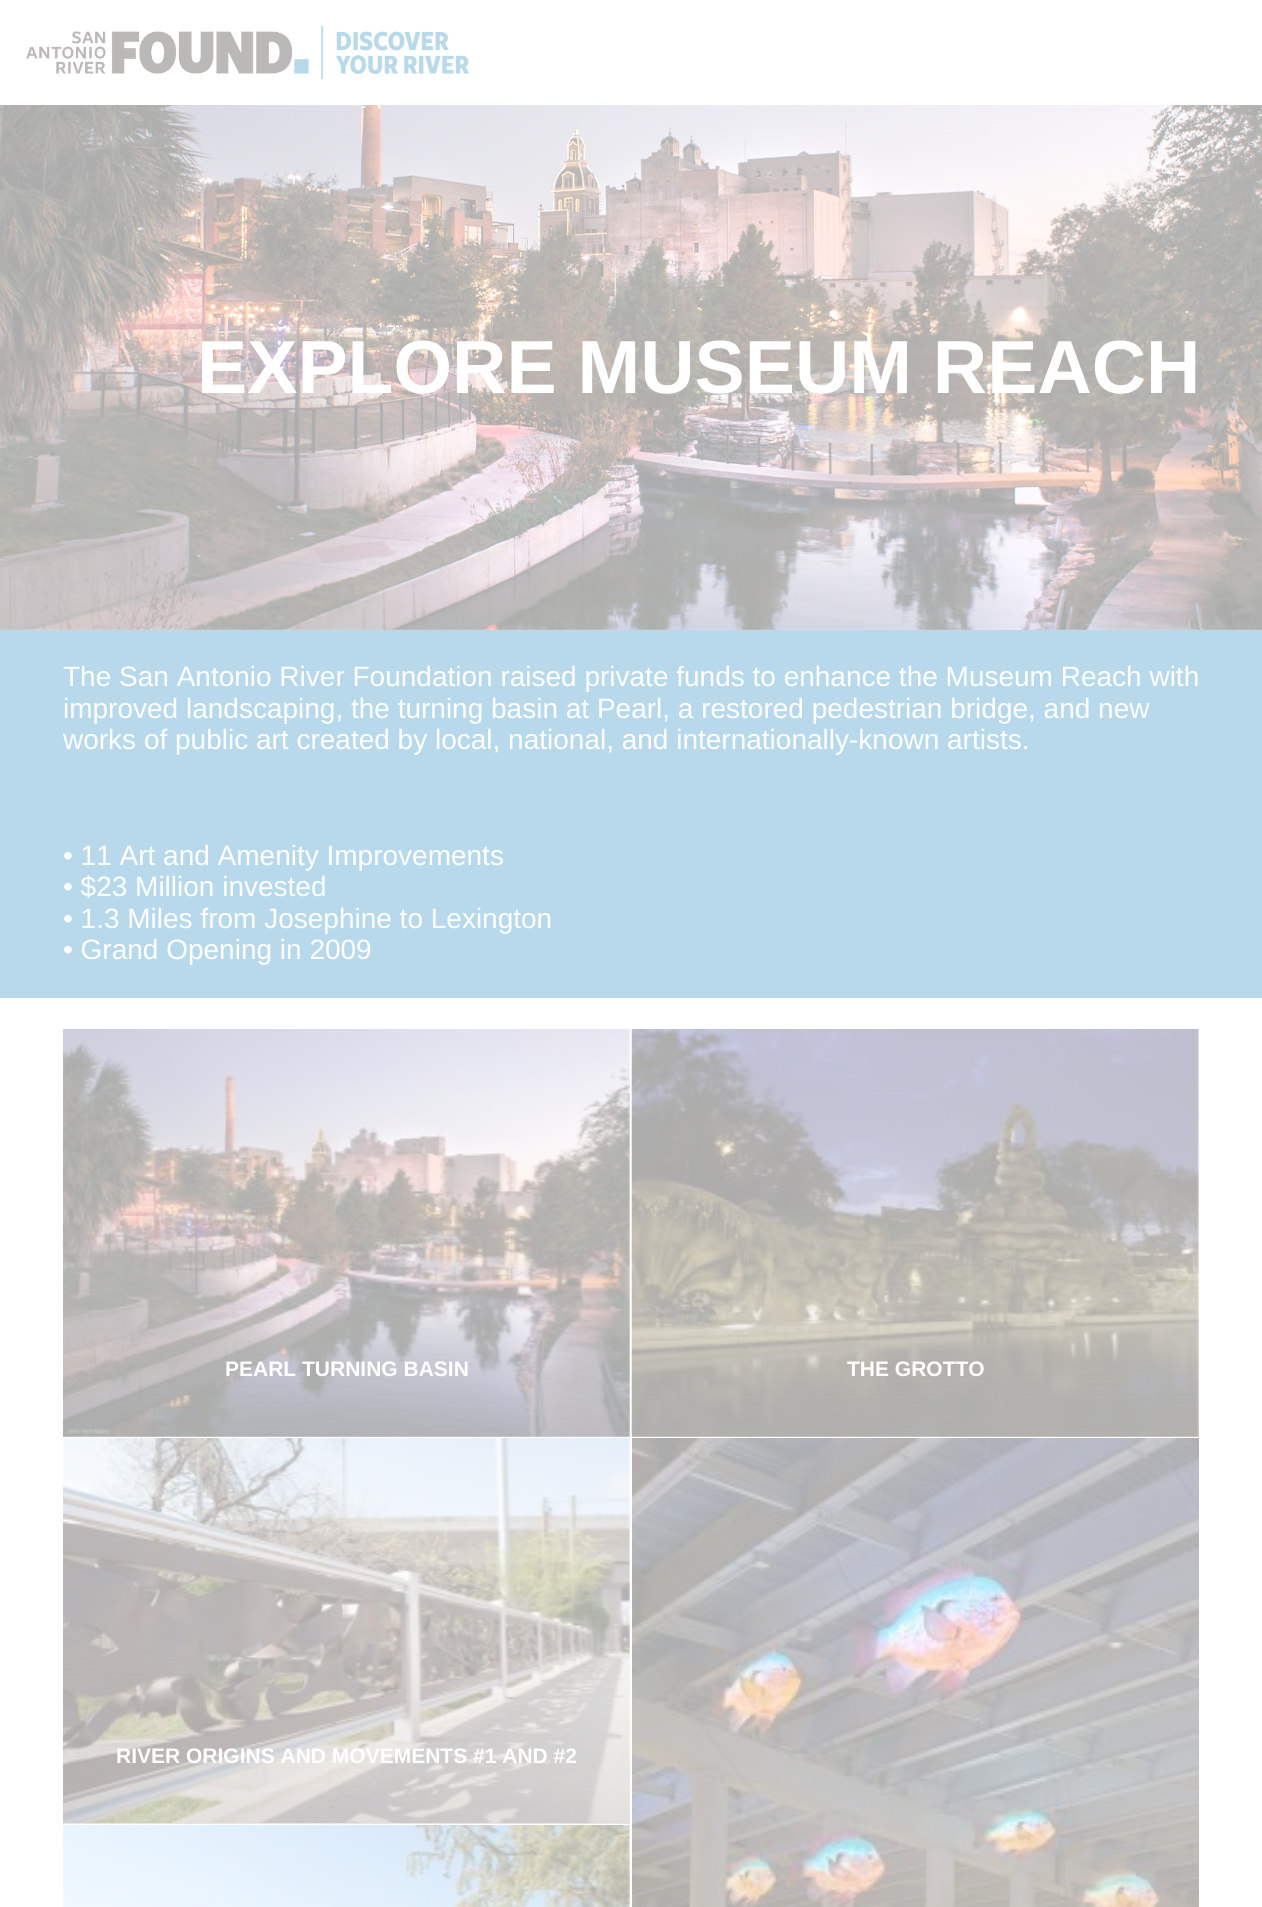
import math
import cairo

surface = cairo.ImageSurface(cairo.FORMAT_RGB24, 1262, 1907)
ctx = cairo.Context(surface)
options = cairo.FontOptions()
options.set_hint_metrics(cairo.HINT_METRICS_OFF)
options.set_hint_style(cairo.HINT_STYLE_NONE)
ctx.set_font_options(options)
ctx.set_miter_limit(4)


def set_color(code):
    ctx.set_source_rgb(*(v / 255 for v in bytes.fromhex(code[-6:])))


def draw_text(x, y, s, family, size, color, bold=False, italic=False):
    ctx.select_font_face(family, cairo.FONT_SLANT_ITALIC if italic else cairo.FONT_SLANT_NORMAL, cairo.FONT_WEIGHT_BOLD if bold else cairo.FONT_WEIGHT_NORMAL)
    ctx.set_font_size(size)
    set_color(color)
    ctx.move_to(x, y)
    ctx.show_text(s)


def fill_rect(x, y, w, h, color):
    set_color(color)
    ctx.rectangle(x, y, w, h)
    ctx.fill()


def draw_image(path, x, y, w, h):
    ctx.save()
    ctx.set_source_surface(cairo.ImageSurface.create_from_png(path), x, y)
    ctx.rectangle(x, y, w, h)
    ctx.fill()
    ctx.restore()


set_color("#ffffff")
ctx.paint()
draw_image("assets/img1.png", 26, 26, 443, 53)
draw_image("assets/img2.png", 0, 105, 1262, 525)
draw_text(197, 393, "EXPLORE MUSEUM REACH", "Liberation Sans", 75.25, "#ffffff", bold=True)
fill_rect(0, 630, 1262, 368, "#b8d9eb")
draw_text(63, 686, "The San Antonio River Foundation raised private funds to enhance the Museum Reach with", "Liberation Sans", 28, "#ffffff")
draw_text(63, 718, "improved landscaping, the turning basin at Pearl, a restored pedestrian bridge, and new", "Liberation Sans", 28, "#ffffff")
draw_text(63, 749, "works of public art created by local, national, and internationally-known artists.", "Liberation Sans", 28, "#ffffff")
draw_text(63, 865, "• 11 Art and Amenity Improvements", "Liberation Sans", 28, "#ffffff")
draw_text(63, 896, "• $23 Million invested", "Liberation Sans", 28, "#ffffff")
draw_text(63, 928, "• 1.3 Miles from Josephine to Lexington", "Liberation Sans", 28, "#ffffff")
draw_text(63, 959, "• Grand Opening in 2009", "Liberation Sans", 28, "#ffffff")
draw_image("assets/img3.png", 63, 1029, 567, 408)
gradient = cairo.LinearGradient(347, 1236, 347, 1439)
gradient.add_color_stop_rgba(0, 0.671, 0.671, 0.671, 0)
gradient.add_color_stop_rgba(1, 0.671, 0.671, 0.671, 0.3)
ctx.set_source(gradient)
ctx.rectangle(63, 1253, 567, 184)
ctx.fill()
draw_text(225, 1376, "PEARL TURNING BASIN", "Liberation Sans", 21, "#ffffff", bold=True)
draw_image("assets/img4.png", 631, 1029, 568, 408)
gradient = cairo.LinearGradient(915, 1236, 915, 1439)
gradient.add_color_stop_rgba(0, 0.671, 0.671, 0.671, 0)
gradient.add_color_stop_rgba(1, 0.671, 0.671, 0.671, 0.3)
ctx.set_source(gradient)
ctx.rectangle(632, 1261, 567, 176)
ctx.fill()
draw_text(847, 1376, "THE GROTTO", "Liberation Sans", 21, "#ffffff", bold=True)
draw_image("assets/img5.png", 63, 1438, 567, 385)
gradient = cairo.LinearGradient(347, 1633, 347, 1825)
gradient.add_color_stop_rgba(0, 0.671, 0.671, 0.671, 0)
gradient.add_color_stop_rgba(1, 0.671, 0.671, 0.671, 0.3)
ctx.set_source(gradient)
ctx.rectangle(63, 1649, 567, 175)
ctx.fill()
draw_text(116, 1763, "RIVER ORIGINS AND MOVEMENTS #1 AND #2", "Liberation Sans", 21, "#ffffff", bold=True)
draw_image("assets/img6.png", 632, 1438, 567, 469)
draw_image("assets/img7.png", 63, 1825, 567, 82)
surface.write_to_png("output.png")
